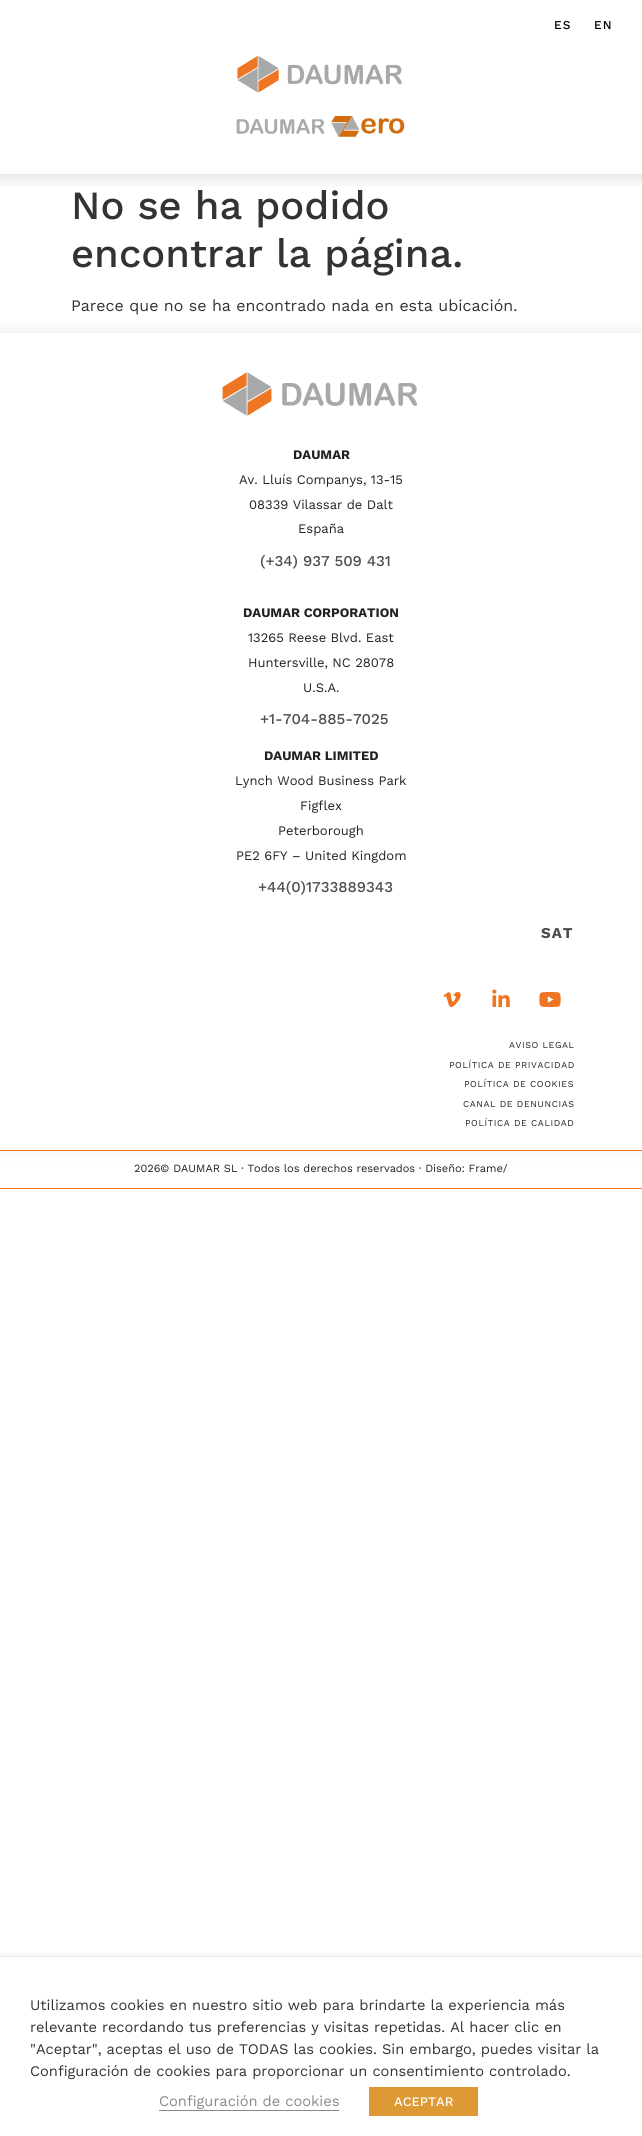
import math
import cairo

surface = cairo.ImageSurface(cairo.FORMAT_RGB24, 642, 2136)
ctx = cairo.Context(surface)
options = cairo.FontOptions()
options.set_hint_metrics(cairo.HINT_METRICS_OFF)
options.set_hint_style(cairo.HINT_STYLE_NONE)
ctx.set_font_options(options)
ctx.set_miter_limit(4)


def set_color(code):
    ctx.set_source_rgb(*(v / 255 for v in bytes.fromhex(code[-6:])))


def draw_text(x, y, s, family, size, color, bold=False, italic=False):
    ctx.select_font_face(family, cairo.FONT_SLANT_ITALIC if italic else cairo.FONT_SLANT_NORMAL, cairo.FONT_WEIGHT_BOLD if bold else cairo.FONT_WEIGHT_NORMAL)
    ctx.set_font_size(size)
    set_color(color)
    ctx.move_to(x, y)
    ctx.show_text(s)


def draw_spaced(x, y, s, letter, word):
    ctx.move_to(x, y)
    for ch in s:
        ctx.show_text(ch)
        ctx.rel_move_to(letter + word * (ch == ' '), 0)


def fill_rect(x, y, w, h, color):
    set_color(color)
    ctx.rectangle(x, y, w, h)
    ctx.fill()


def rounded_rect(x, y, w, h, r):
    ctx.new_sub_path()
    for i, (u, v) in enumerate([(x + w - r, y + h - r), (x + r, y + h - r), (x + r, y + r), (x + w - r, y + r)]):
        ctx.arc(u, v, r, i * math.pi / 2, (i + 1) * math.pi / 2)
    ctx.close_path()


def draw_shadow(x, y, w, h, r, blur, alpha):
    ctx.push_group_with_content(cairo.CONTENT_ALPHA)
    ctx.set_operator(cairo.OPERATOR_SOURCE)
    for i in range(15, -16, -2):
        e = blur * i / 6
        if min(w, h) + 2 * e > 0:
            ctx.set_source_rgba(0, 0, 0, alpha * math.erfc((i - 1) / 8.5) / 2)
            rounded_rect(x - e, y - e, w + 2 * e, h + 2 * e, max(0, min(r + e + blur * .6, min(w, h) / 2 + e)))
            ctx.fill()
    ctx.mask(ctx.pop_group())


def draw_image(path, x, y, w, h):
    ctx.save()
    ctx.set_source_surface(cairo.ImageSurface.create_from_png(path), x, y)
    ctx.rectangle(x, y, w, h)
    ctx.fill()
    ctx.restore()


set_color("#ffffff")
ctx.paint()
ctx.save()
ctx.rectangle(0, 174, 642, 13)
ctx.clip()
set_color("#000000")
draw_shadow(-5, -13, 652, 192, 0, 8, 0.12)
ctx.restore()
ctx.select_font_face("Work Sans Medium")
ctx.set_font_size(12)
set_color("#000000")
draw_spaced(554, 29, "ES", 1, 0)
draw_spaced(594, 29, "EN", 1, 0)
draw_image("assets/img1.png", 237, 56, 165, 37)
draw_image("assets/img2.png", 236, 116, 169, 21)
draw_text(71, 219, "No se ha podido", "Work Sans Medium", 40, "#333333")
draw_text(71, 267, "encontrar la página.", "Work Sans Medium", 40, "#333333")
draw_text(71, 311, "Parece que no se ha encontrado nada en esta ubicación.", "Work Sans", 16, "#333333")
ctx.save()
ctx.set_fill_rule(cairo.FILL_RULE_EVEN_ODD)
ctx.new_path()
ctx.move_to(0, 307)
ctx.line_to(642, 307)
ctx.line_to(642, 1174)
ctx.line_to(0, 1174)
ctx.close_path()
ctx.move_to(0, 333)
ctx.line_to(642, 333)
ctx.line_to(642, 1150)
ctx.line_to(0, 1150)
ctx.close_path()
ctx.clip()
set_color("#000000")
draw_shadow(-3, 329, 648, 823, 0, 7, 0.06)
ctx.restore()
draw_image("assets/img3.png", 222, 372, 195, 44)
draw_text(293, 459, "DAUMAR", "Work Sans", 13, "#212121", bold=True)
draw_text(239, 484, "Av. Lluís Companys, 13-15", "Work Sans", 13, "#212121")
draw_text(249, 509, "08339 Vilassar de Dalt", "Work Sans", 13, "#212121")
draw_text(298, 533, "España", "Work Sans", 13, "#212121")
draw_text(260, 566, "(+34) 937 509 431", "Work Sans Medium", 15, "#4d4d4d")
draw_text(243, 617, "DAUMAR CORPORATION", "Work Sans", 13, "#212121", bold=True)
draw_text(248, 642, "13265 Reese Blvd. East", "Work Sans", 13, "#212121")
draw_text(248, 667, "Huntersville, NC 28078", "Work Sans", 13, "#212121")
draw_text(303, 692, "U.S.A.", "Work Sans", 13, "#212121")
draw_text(260, 724, "+1-704-885-7025", "Work Sans Medium", 15, "#4d4d4d")
draw_text(264, 760, "DAUMAR LIMITED", "Work Sans", 13, "#212121", bold=True)
draw_text(235, 785, "Lynch Wood Business Park", "Work Sans", 13, "#212121")
draw_text(300, 810, "Figflex", "Work Sans", 13, "#212121")
draw_text(278, 835, "Peterborough", "Work Sans", 13, "#212121")
draw_text(236, 860, "PE2 6FY – United Kingdom", "Work Sans", 13, "#212121")
draw_text(258, 892, "+44(0)1733889343", "Work Sans Medium", 15, "#4d4d4d")
ctx.select_font_face("Work Sans", cairo.FONT_SLANT_NORMAL, cairo.FONT_WEIGHT_BOLD)
draw_spaced(541, 938, "SAT", 1, 0)
draw_image("assets/img4.png", 443, 992, 18, 16)
draw_image("assets/img5.png", 492, 989, 18, 18)
draw_image("assets/img6.png", 539, 992, 22, 15)
ctx.select_font_face("Work Sans")
ctx.set_font_size(9)
set_color("#212121")
draw_spaced(509, 1048, "AVISO LEGAL", 0.6, 0)
draw_spaced(449, 1068, "POLÍTICA DE PRIVACIDAD", 0.6, 0)
draw_spaced(464, 1087, "POLÍTICA DE COOKIES", 0.6, 0)
draw_spaced(463, 1107, "CANAL DE DENUNCIAS", 0.6, 0)
draw_spaced(465, 1126, "POLÍTICA DE CALIDAD", 0.6, 0)
fill_rect(0, 1150, 642, 1, "#ee7623")
fill_rect(0, 1188, 642, 1, "#ee7623")
draw_text(134, 1172, "2026© DAUMAR SL · Todos los derechos reservados · Diseño: Frame/", "Work Sans", 11, "#212121")
ctx.save()
ctx.rectangle(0, 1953, 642, 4)
ctx.clip()
set_color("#000000")
draw_shadow(0, 1962, 642, 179, 0, 5, 0.5)
ctx.restore()
draw_text(30, 2010, "Utilizamos cookies en nuestro sitio web para brindarte la experiencia más", "Work Sans", 14.65, "#333333")
draw_text(30, 2032, "relevante recordando tus preferencias y visitas repetidas. Al hacer clic en", "Work Sans", 14.65, "#333333")
draw_text(30, 2054, "\"Aceptar\", aceptas el uso de TODAS las cookies. Sin embargo, puedes visitar la", "Work Sans", 14.65, "#333333")
draw_text(30, 2076, "Configuración de cookies para proporcionar un consentimiento controlado.", "Work Sans", 14.65, "#333333")
draw_text(159, 2106, "Configuración de cookies", "Work Sans", 14.65, "#898888")
fill_rect(159, 2110, 180, 1, "#898888")
fill_rect(369, 2087, 109, 29, "#dd9933")
draw_text(394, 2106, "ACEPTAR", "Work Sans Medium", 13, "#ffffff")
surface.write_to_png("output.png")
